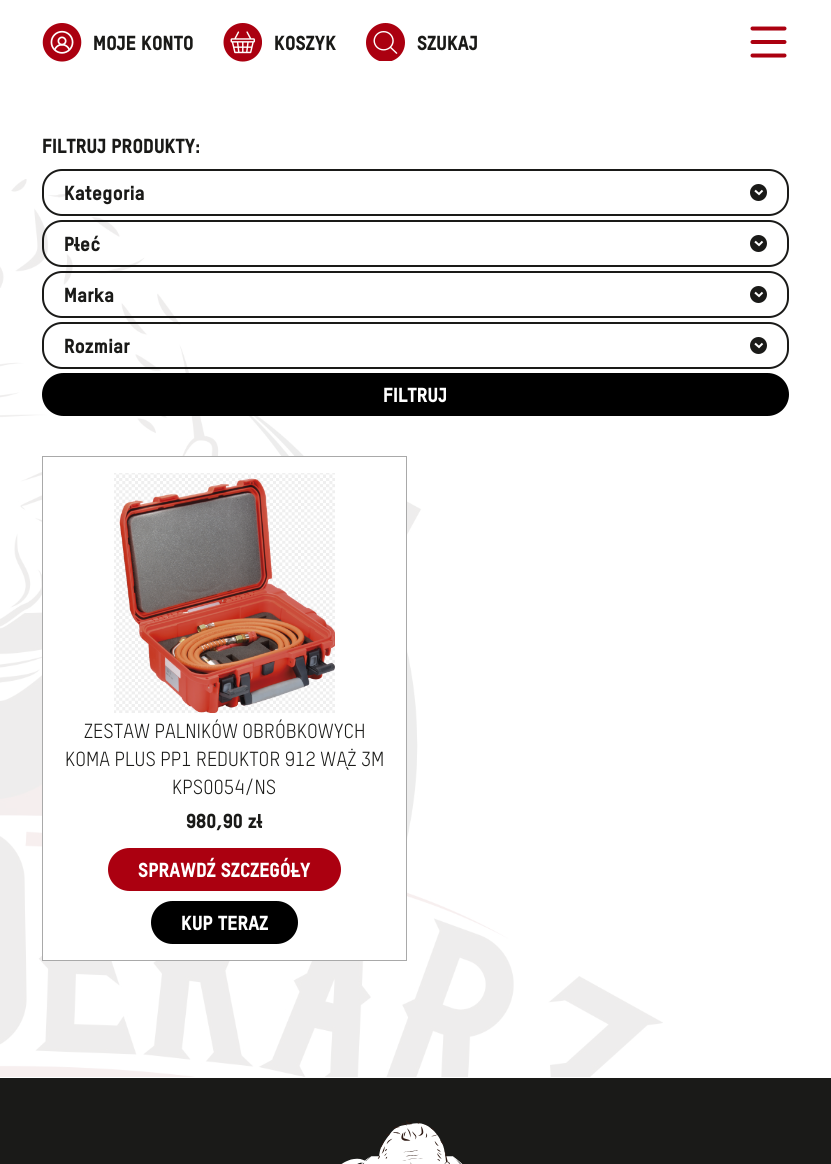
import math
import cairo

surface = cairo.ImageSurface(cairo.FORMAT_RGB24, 831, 1164)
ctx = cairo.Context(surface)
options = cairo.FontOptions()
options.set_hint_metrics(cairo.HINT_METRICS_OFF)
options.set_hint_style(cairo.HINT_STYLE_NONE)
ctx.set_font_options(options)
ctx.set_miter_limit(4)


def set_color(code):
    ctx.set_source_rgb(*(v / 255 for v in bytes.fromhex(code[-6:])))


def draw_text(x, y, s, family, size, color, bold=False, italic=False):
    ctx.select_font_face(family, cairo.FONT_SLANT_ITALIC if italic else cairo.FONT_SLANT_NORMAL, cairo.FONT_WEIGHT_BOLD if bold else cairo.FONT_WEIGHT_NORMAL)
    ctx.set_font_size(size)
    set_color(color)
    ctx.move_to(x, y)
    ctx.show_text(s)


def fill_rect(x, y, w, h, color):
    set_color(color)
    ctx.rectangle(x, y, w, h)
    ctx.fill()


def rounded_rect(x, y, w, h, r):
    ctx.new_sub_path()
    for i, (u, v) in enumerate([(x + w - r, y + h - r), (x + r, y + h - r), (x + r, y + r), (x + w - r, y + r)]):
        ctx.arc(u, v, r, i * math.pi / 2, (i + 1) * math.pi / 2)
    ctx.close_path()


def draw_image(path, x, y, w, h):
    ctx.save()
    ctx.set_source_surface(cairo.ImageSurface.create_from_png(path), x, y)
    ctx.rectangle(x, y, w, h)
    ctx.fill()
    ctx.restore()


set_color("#ffffff")
ctx.paint()
draw_image("assets/img1.png", 42, 23, 40, 39)
draw_text(93, 50, "MOJE KONTO", "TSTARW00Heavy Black", 20, "#1a1a18")
draw_image("assets/img2.png", 223, 23, 39, 39)
draw_text(274, 50, "KOSZYK", "TSTARW00Heavy Black", 20, "#1a1a18")
draw_image("assets/img3.png", 366, 23, 39, 38)
draw_text(417, 50, "SZUKAJ", "TSTARW00Heavy Black", 20, "#1a1a18")
ctx.new_path()
ctx.move_to(752.5, 28.5)
ctx.line_to(784.5, 28.5)
ctx.move_to(752.5, 42)
ctx.line_to(784.5, 42)
ctx.move_to(752.5, 55.5)
ctx.line_to(784.5, 55.5)
set_color("#ab0010")
ctx.set_line_width(4)
ctx.set_line_cap(cairo.LINE_CAP_ROUND)
ctx.set_line_join(cairo.LINE_JOIN_ROUND)
ctx.stroke()
draw_image("assets/img4.png", 0, 179, 663, 898)
draw_text(42, 153, "FILTRUJ PRODUKTY:", "TSTARW00Heavy Black", 20, "#1a1a18")
rounded_rect(43, 170, 745, 45, 19)
ctx.set_line_width(2)
ctx.set_line_cap(cairo.LINE_CAP_BUTT)
ctx.set_line_join(cairo.LINE_JOIN_MITER)
ctx.stroke()
draw_text(64, 200, "Kategoria", "TSTARW00Heavy Black", 20, "#1a1a18")
ctx.new_path()
ctx.arc(758.5, 192.5, 8.5, 0, 2 * math.pi)
ctx.fill()
ctx.new_path()
ctx.move_to(762.5, 190.5)
ctx.line_to(759, 194)
ctx.line_to(755, 190.5)
set_color("#ffffff")
ctx.stroke()
rounded_rect(43, 221, 745, 45, 19)
set_color("#1a1a18")
ctx.stroke()
draw_text(64, 251, "Płeć", "TSTARW00Heavy Black", 20, "#1a1a18")
ctx.new_path()
ctx.arc(758.5, 243.5, 8.5, 0, 2 * math.pi)
ctx.fill()
ctx.new_path()
ctx.move_to(762.5, 241.5)
ctx.line_to(759, 245)
ctx.line_to(755, 241.5)
set_color("#ffffff")
ctx.stroke()
rounded_rect(43, 272, 745, 45, 19)
set_color("#1a1a18")
ctx.stroke()
draw_text(64, 302, "Marka", "TSTARW00Heavy Black", 20, "#1a1a18")
ctx.new_path()
ctx.arc(758.5, 294.5, 8.5, 0, 2 * math.pi)
ctx.fill()
ctx.new_path()
ctx.move_to(762.5, 292.5)
ctx.line_to(759, 296)
ctx.line_to(755, 292.5)
set_color("#ffffff")
ctx.stroke()
rounded_rect(43, 323, 745, 45, 19)
set_color("#1a1a18")
ctx.stroke()
draw_text(64, 353, "Rozmiar", "TSTARW00Heavy Black", 20, "#1a1a18")
ctx.new_path()
ctx.arc(758.5, 345.5, 8.5, 0, 2 * math.pi)
ctx.fill()
ctx.new_path()
ctx.move_to(762.5, 343.5)
ctx.line_to(759, 347)
ctx.line_to(755, 343.5)
set_color("#ffffff")
ctx.stroke()
set_color("#000000")
rounded_rect(42, 373, 747, 43, 21.5)
ctx.fill()
draw_text(383, 402, "FILTRUJ", "TSTARW00Heavy Black", 20, "#ffffff")
ctx.rectangle(42.5, 456.5, 364, 504)
ctx.fill_preserve()
set_color("#a9a9a9")
ctx.set_line_width(1)
ctx.stroke()
draw_image("assets/img5.png", 114, 473, 221, 240)
draw_text(84, 738, "ZESTAW PALNIKÓW OBRÓBKOWYCH", "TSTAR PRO", 20, "#1a1a18")
draw_text(65, 766, "KOMA PLUS PP1 REDUKTOR 912 WĄŻ 3M", "TSTAR PRO", 20, "#1a1a18")
draw_text(172, 794, "KPS0054/NS", "TSTAR PRO", 20, "#1a1a18")
draw_text(186, 828, "980,90 zł", "TSTARW00Heavy Black", 20, "#1a1a18")
set_color("#ab0010")
rounded_rect(108, 848, 233, 43, 21.5)
ctx.fill()
draw_text(138, 877, "SPRAWDŹ SZCZEGÓŁY", "TSTARW00Heavy Black", 20, "#ffffff")
set_color("#000000")
rounded_rect(151, 901, 147, 43, 21.5)
ctx.fill()
draw_text(181, 930, "KUP TERAZ", "TSTARW00Heavy Black", 20, "#ffffff")
fill_rect(0, 1078, 831, 86, "#1a1a18")
draw_image("assets/img6.png", 341, 1120, 122, 44)
surface.write_to_png("output.png")
